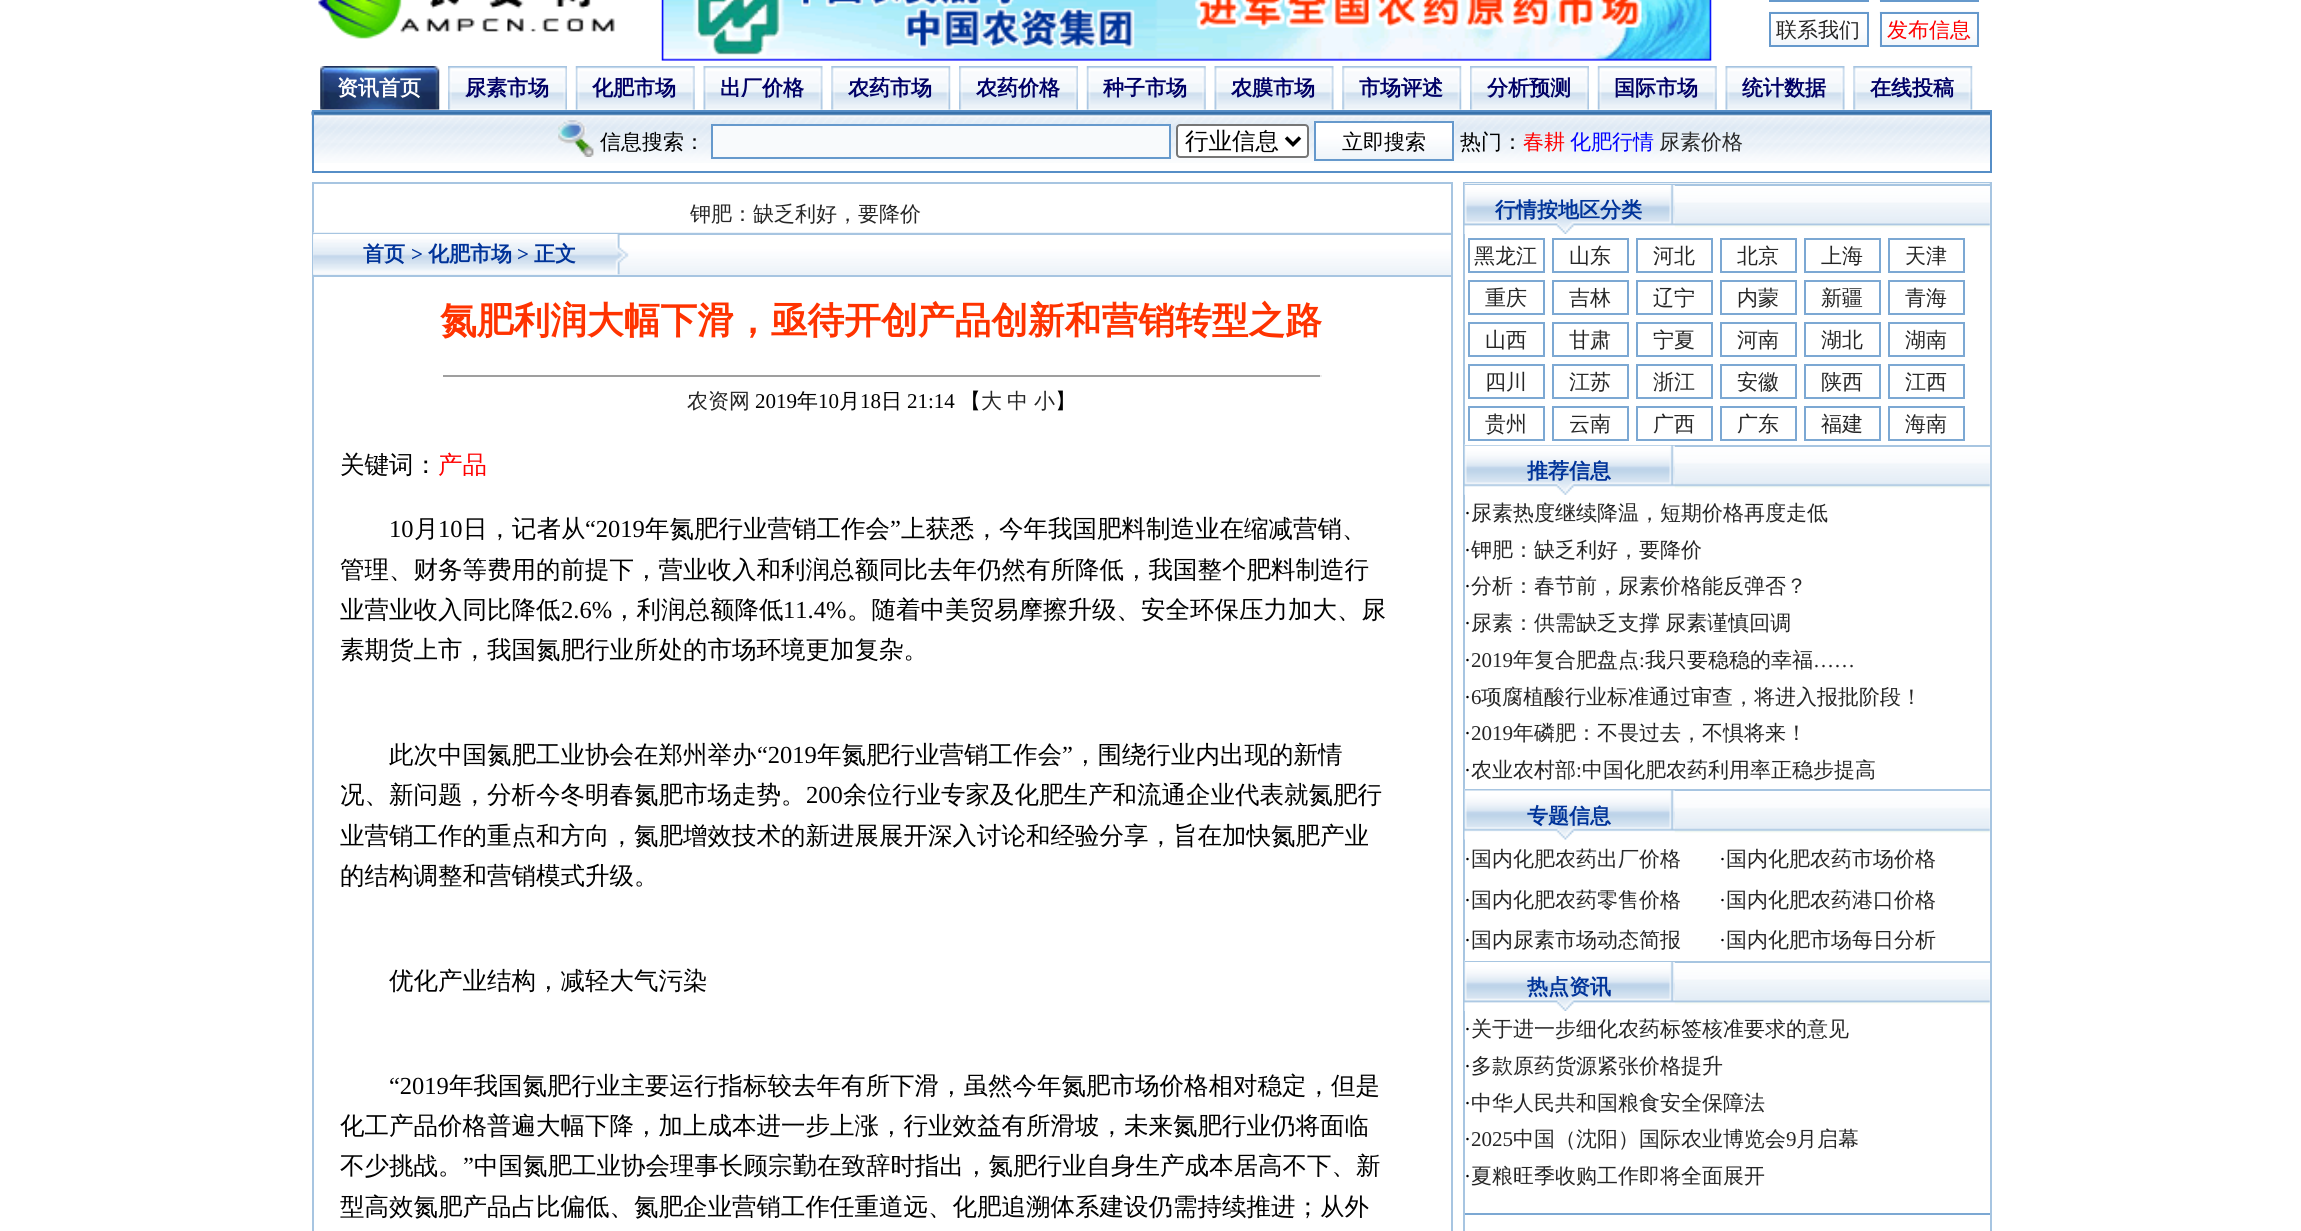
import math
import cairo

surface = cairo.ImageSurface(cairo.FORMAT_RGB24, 2301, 1231)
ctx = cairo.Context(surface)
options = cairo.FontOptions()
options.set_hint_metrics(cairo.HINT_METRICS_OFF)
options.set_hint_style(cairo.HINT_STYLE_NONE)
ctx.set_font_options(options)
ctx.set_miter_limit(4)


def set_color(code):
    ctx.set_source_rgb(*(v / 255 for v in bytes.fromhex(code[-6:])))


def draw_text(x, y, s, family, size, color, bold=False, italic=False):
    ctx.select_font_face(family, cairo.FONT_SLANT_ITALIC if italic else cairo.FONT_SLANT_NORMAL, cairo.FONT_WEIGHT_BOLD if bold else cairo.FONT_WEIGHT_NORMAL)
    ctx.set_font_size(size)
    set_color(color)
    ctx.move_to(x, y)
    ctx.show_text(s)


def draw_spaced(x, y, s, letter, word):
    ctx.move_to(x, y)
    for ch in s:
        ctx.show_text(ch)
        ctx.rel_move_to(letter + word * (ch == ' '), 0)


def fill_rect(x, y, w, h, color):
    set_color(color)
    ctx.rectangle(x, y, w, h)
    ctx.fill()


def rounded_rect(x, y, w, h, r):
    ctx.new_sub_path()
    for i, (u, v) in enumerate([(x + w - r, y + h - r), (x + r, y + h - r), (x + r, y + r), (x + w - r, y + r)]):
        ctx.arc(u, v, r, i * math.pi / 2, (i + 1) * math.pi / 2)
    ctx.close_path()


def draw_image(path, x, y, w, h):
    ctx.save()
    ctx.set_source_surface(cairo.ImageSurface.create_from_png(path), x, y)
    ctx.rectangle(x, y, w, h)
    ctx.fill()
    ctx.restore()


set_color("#ffffff")
ctx.paint()
draw_image("assets/img1.png", 318, 0, 297, 39)
draw_image("assets/img2.png", 661, 0, 1051, 61)
ctx.rectangle(1770, -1, 98, 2)
set_color("#6699cc")
ctx.stroke()
draw_image("assets/img3.png", 1879, 0, 1, 1)
ctx.rectangle(1881, -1, 97, 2)
ctx.stroke()
draw_image("assets/img4.png", 1769, 11, 100, 34)
ctx.rectangle(1770, 13, 98, 33)
ctx.stroke()
draw_text(1776, 37, "联系我们", "WenQuanYi Zen Hei Medium", 21, "#262626")
draw_image("assets/img5.png", 1879, 11, 101, 36)
ctx.rectangle(1881, 13, 97, 33)
set_color("#6699cc")
ctx.stroke()
draw_text(1887, 37, "发布信息", "WenQuanYi Zen Hei Medium", 21, "#ff0000")
draw_image("assets/img6.png", 320, 66, 120, 44)
draw_text(337, 95, "资讯首页", "WenQuanYi Zen Hei", 21, "#ffffff", bold=True)
draw_image("assets/img7.png", 448, 66, 119, 44)
draw_text(465, 95, "尿素市场", "WenQuanYi Zen Hei", 21, "#000066", bold=True)
draw_image("assets/img8.png", 575, 66, 120, 44)
draw_text(592, 95, "化肥市场", "WenQuanYi Zen Hei", 21, "#000066", bold=True)
draw_image("assets/img9.png", 703, 66, 120, 44)
draw_text(720, 95, "出厂价格", "WenQuanYi Zen Hei", 21, "#000066", bold=True)
draw_image("assets/img10.png", 831, 66, 120, 44)
draw_text(848, 95, "农药市场", "WenQuanYi Zen Hei", 21, "#000066", bold=True)
draw_image("assets/img7.png", 959, 66, 119, 44)
draw_text(976, 95, "农药价格", "WenQuanYi Zen Hei", 21, "#000066", bold=True)
draw_image("assets/img11.png", 1086, 66, 120, 44)
draw_text(1103, 95, "种子市场", "WenQuanYi Zen Hei", 21, "#000066", bold=True)
draw_image("assets/img9.png", 1214, 66, 120, 44)
draw_text(1231, 95, "农膜市场", "WenQuanYi Zen Hei", 21, "#000066", bold=True)
draw_image("assets/img10.png", 1342, 66, 120, 44)
draw_text(1359, 95, "市场评述", "WenQuanYi Zen Hei", 21, "#000066", bold=True)
draw_image("assets/img7.png", 1470, 66, 119, 44)
draw_text(1487, 95, "分析预测", "WenQuanYi Zen Hei", 21, "#000066", bold=True)
draw_image("assets/img11.png", 1597, 66, 120, 44)
draw_text(1614, 95, "国际市场", "WenQuanYi Zen Hei", 21, "#000066", bold=True)
draw_image("assets/img9.png", 1725, 66, 120, 44)
draw_text(1742, 95, "统计数据", "WenQuanYi Zen Hei", 21, "#000066", bold=True)
draw_image("assets/img10.png", 1853, 66, 120, 44)
draw_text(1870, 95, "在线投稿", "WenQuanYi Zen Hei", 21, "#000066", bold=True)
draw_image("assets/img12.png", 311, 109, 1681, 54)
ctx.rectangle(313, 111, 1678, 61)
set_color("#568ec7")
ctx.stroke()
draw_image("assets/img13.png", 558, 120, 36, 37)
draw_text(600, 149, "信息搜索：", "WenQuanYi Zen Hei Medium", 21, "#000000")
fill_rect(713, 126, 456, 30, "#f8fafc")
ctx.rectangle(712, 125, 458, 33)
set_color("#6699cc")
ctx.stroke()
set_color("#ffffff")
rounded_rect(1177, 125, 131, 32, 3)
ctx.fill_preserve()
set_color("#767676")
ctx.stroke()
ctx.new_path()
ctx.move_to(1286, 137.5)
ctx.line_to(1293, 144.5)
ctx.line_to(1300, 137.5)
set_color("#000000")
ctx.set_line_width(3.5)
ctx.stroke()
draw_text(1185, 149, "行业信息", "WenQuanYi Zen Hei Medium", 23.5, "#000000")
draw_image("assets/img14.png", 1316, 121, 139, 40)
ctx.rectangle(1315, 122, 138, 38)
set_color("#6699cc")
ctx.set_line_width(2)
ctx.stroke()
draw_text(1342, 149, "立即搜索", "WenQuanYi Zen Hei Medium", 21, "#000000")
draw_text(1460, 149, "热门：", "WenQuanYi Zen Hei Medium", 21, "#000000")
draw_text(1523, 149, "春耕", "WenQuanYi Zen Hei Medium", 21, "#ff0000")
draw_text(1570, 149, "化肥行情", "WenQuanYi Zen Hei Medium", 21, "#0000ff")
draw_text(1659, 149, "尿素价格", "WenQuanYi Zen Hei Medium", 21, "#262626")
ctx.rectangle(313, 183, 1139, 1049)
set_color("#a7c5e1")
ctx.stroke()
draw_text(690, 221, "钾肥：缺乏利好，要降价", "WenQuanYi Zen Hei Medium", 21, "#262626")
draw_image("assets/img15.png", 313, 232, 1138, 43)
fill_rect(313, 233, 1138, 2, "#a7c5e1")
fill_rect(313, 275, 1138, 2, "#a7c5e1")
draw_image("assets/img16.png", 313, 234, 316, 41)
draw_text(363, 261, "首页", "WenQuanYi Zen Hei", 21, "#003399", bold=True)
draw_text(411, 261, ">", "Liberation Serif", 21, "#003399", bold=True)
draw_text(428, 261, "化肥市场", "WenQuanYi Zen Hei", 21, "#003399", bold=True)
draw_text(517, 261, ">", "Liberation Serif", 21, "#003399", bold=True)
draw_text(534, 261, "正文", "WenQuanYi Zen Hei", 21, "#003399", bold=True)
draw_text(440, 333, "氮肥利润大幅下滑，亟待开创产品创新和营销转型之路", "WenQuanYi Zen Hei", 36.75, "#ff3300", bold=True)
fill_rect(443, 375, 878, 2, "#9f9f9f")
fill_rect(1320, 375, 2, 2, "#eeeeee")
draw_text(687, 408, "农资网", "WenQuanYi Zen Hei Medium", 21, "#262626")
draw_text(755, 408, "2019", "Liberation Serif", 21, "#000000")
draw_text(797, 408, "年", "WenQuanYi Zen Hei Medium", 21, "#000000")
draw_text(818, 408, "10", "Liberation Serif", 21, "#000000")
draw_text(839, 408, "月", "WenQuanYi Zen Hei Medium", 21, "#000000")
draw_text(860, 408, "18", "Liberation Serif", 21, "#000000")
draw_text(881, 408, "日", "WenQuanYi Zen Hei Medium", 21, "#000000")
draw_text(907, 408, "21:14", "Liberation Serif", 21, "#000000")
draw_text(960, 408, "【", "WenQuanYi Zen Hei Medium", 21, "#000000")
draw_text(981, 408, "大", "WenQuanYi Zen Hei Medium", 21, "#262626")
draw_text(1007, 408, "中", "WenQuanYi Zen Hei Medium", 21, "#262626")
draw_text(1034, 408, "小", "WenQuanYi Zen Hei Medium", 21, "#262626")
draw_text(1055, 408, "】", "WenQuanYi Zen Hei Medium", 21, "#000000")
draw_text(340, 473, "关键词：", "WenQuanYi Zen Hei Medium", 24.5, "#000000")
draw_text(438, 473, "产品", "WenQuanYi Zen Hei Medium", 24.5, "#ff0000")
draw_text(389, 537, "10", "Liberation Serif", 24.5, "#000000")
draw_text(414, 537, "月", "WenQuanYi Zen Hei Medium", 24.5, "#000000")
draw_text(438, 537, "10", "Liberation Serif", 24.5, "#000000")
draw_text(463, 537, "日，记者从", "WenQuanYi Zen Hei Medium", 24.5, "#000000")
draw_text(585, 537, "“2019", "Liberation Serif", 24.5, "#000000")
draw_text(645, 537, "年氮肥行业营销工作会", "WenQuanYi Zen Hei Medium", 24.5, "#000000")
draw_text(890, 537, "”", "Liberation Serif", 24.5, "#000000")
draw_text(901, 537, "上获悉，今年我国肥料制造业在缩减营销、", "WenQuanYi Zen Hei Medium", 24.5, "#000000")
draw_text(340, 578, "管理、财务等费用的前提下，营业收入和利润总额同比去年仍然有所降低，我国整个肥料制造行", "WenQuanYi Zen Hei Medium", 24.5, "#000000")
draw_text(340, 618, "业营业收入同比降低", "WenQuanYi Zen Hei Medium", 24.5, "#000000")
draw_text(561, 618, "2.6%", "Liberation Serif", 24.5, "#000000")
draw_text(612, 618, "，利润总额降低", "WenQuanYi Zen Hei Medium", 24.5, "#000000")
draw_text(783, 618, "11.4%", "Liberation Serif", 24.5, "#000000")
draw_text(847, 618, "。随着中美贸易摩擦升级、安全环保压力加大、尿", "WenQuanYi Zen Hei Medium", 24.5, "#000000")
draw_text(340, 658, "素期货上市，我国氮肥行业所处的市场环境更加复杂。", "WenQuanYi Zen Hei Medium", 24.5, "#000000")
draw_text(389, 763, "此次中国氮肥工业协会在郑州举办", "WenQuanYi Zen Hei Medium", 24.5, "#000000")
draw_text(757, 763, "“2019", "Liberation Serif", 24.5, "#000000")
draw_text(817, 763, "年氮肥行业营销工作会", "WenQuanYi Zen Hei Medium", 24.5, "#000000")
draw_text(1062, 763, "”", "Liberation Serif", 24.5, "#000000")
draw_text(1073, 763, "，围绕行业内出现的新情", "WenQuanYi Zen Hei Medium", 24.5, "#000000")
draw_text(340, 803, "况、新问题，分析今冬明春氮肥市场走势。", "WenQuanYi Zen Hei Medium", 24.5, "#000000")
draw_text(806, 803, "200", "Liberation Serif", 24.5, "#000000")
draw_text(843, 803, "余位行业专家及化肥生产和流通企业代表就氮肥行", "WenQuanYi Zen Hei Medium", 24.5, "#000000")
draw_text(340, 844, "业营销工作的重点和方向，氮肥增效技术的新进展展开深入讨论和经验分享，旨在加快氮肥产业", "WenQuanYi Zen Hei Medium", 24.5, "#000000")
draw_text(340, 884, "的结构调整和营销模式升级。", "WenQuanYi Zen Hei Medium", 24.5, "#000000")
draw_text(389, 989, "优化产业结构，减轻大气污染", "WenQuanYi Zen Hei Medium", 24.5, "#000000")
draw_text(389, 1094, "“2019", "Liberation Serif", 24.5, "#000000")
draw_text(449, 1094, "年我国氮肥行业主要运行指标较去年有所下滑，虽然今年氮肥市场价格相对稳定，但是", "WenQuanYi Zen Hei Medium", 24.5, "#000000")
draw_text(340, 1134, "化工产品价格普遍大幅下降，加上成本进一步上涨，行业效益有所滑坡，未来氮肥行业仍将面临", "WenQuanYi Zen Hei Medium", 24.5, "#000000")
draw_text(340, 1174, "不少挑战。", "WenQuanYi Zen Hei Medium", 24.5, "#000000")
draw_text(463, 1174, "”", "Liberation Serif", 24.5, "#000000")
draw_text(474, 1174, "中国氮肥工业协会理事长顾宗勤在致辞时指出，氮肥行业自身生产成本居高不下、新", "WenQuanYi Zen Hei Medium", 24.5, "#000000")
draw_text(340, 1215, "型高效氮肥产品占比偏低、氮肥企业营销工作任重道远、化肥追溯体系建设仍需持续推进；从外", "WenQuanYi Zen Hei Medium", 24.5, "#000000")
ctx.rectangle(1464, 183, 527, 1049)
set_color("#a7c5e1")
ctx.stroke()
draw_image("assets/img17.png", 1464, 183, 526, 51)
fill_rect(1465, 184, 525, 2, "#a7c5e1")
draw_image("assets/img18.png", 1464, 185, 211, 49)
draw_text(1495, 217, "行情按地区分类", "WenQuanYi Zen Hei", 21, "#003399", bold=True)
ctx.rectangle(1469, 239, 75, 33)
set_color("#7ca8d3")
ctx.stroke()
draw_text(1474, 263, "黑龙江", "WenQuanYi Zen Hei Medium", 21, "#262626")
ctx.rectangle(1553, 239, 75, 33)
set_color("#7ca8d3")
ctx.stroke()
draw_text(1569, 263, "山东", "WenQuanYi Zen Hei Medium", 21, "#262626")
ctx.rectangle(1637, 239, 75, 33)
set_color("#7ca8d3")
ctx.stroke()
draw_text(1653, 263, "河北", "WenQuanYi Zen Hei Medium", 21, "#262626")
ctx.rectangle(1721, 239, 75, 33)
set_color("#7ca8d3")
ctx.stroke()
draw_text(1737, 263, "北京", "WenQuanYi Zen Hei Medium", 21, "#262626")
ctx.rectangle(1805, 239, 75, 33)
set_color("#7ca8d3")
ctx.stroke()
draw_text(1821, 263, "上海", "WenQuanYi Zen Hei Medium", 21, "#262626")
ctx.rectangle(1889, 239, 75, 33)
set_color("#7ca8d3")
ctx.stroke()
draw_text(1905, 263, "天津", "WenQuanYi Zen Hei Medium", 21, "#262626")
ctx.rectangle(1469, 281, 75, 33)
set_color("#7ca8d3")
ctx.stroke()
draw_text(1485, 305, "重庆", "WenQuanYi Zen Hei Medium", 21, "#262626")
ctx.rectangle(1553, 281, 75, 33)
set_color("#7ca8d3")
ctx.stroke()
draw_text(1569, 305, "吉林", "WenQuanYi Zen Hei Medium", 21, "#262626")
ctx.rectangle(1637, 281, 75, 33)
set_color("#7ca8d3")
ctx.stroke()
draw_text(1653, 305, "辽宁", "WenQuanYi Zen Hei Medium", 21, "#262626")
ctx.rectangle(1721, 281, 75, 33)
set_color("#7ca8d3")
ctx.stroke()
draw_text(1737, 305, "内蒙", "WenQuanYi Zen Hei Medium", 21, "#262626")
ctx.rectangle(1805, 281, 75, 33)
set_color("#7ca8d3")
ctx.stroke()
draw_text(1821, 305, "新疆", "WenQuanYi Zen Hei Medium", 21, "#262626")
ctx.rectangle(1889, 281, 75, 33)
set_color("#7ca8d3")
ctx.stroke()
draw_text(1905, 305, "青海", "WenQuanYi Zen Hei Medium", 21, "#262626")
ctx.rectangle(1469, 323, 75, 33)
set_color("#7ca8d3")
ctx.stroke()
draw_text(1485, 347, "山西", "WenQuanYi Zen Hei Medium", 21, "#262626")
ctx.rectangle(1553, 323, 75, 33)
set_color("#7ca8d3")
ctx.stroke()
draw_text(1569, 347, "甘肃", "WenQuanYi Zen Hei Medium", 21, "#262626")
ctx.rectangle(1637, 323, 75, 33)
set_color("#7ca8d3")
ctx.stroke()
draw_text(1653, 347, "宁夏", "WenQuanYi Zen Hei Medium", 21, "#262626")
ctx.rectangle(1721, 323, 75, 33)
set_color("#7ca8d3")
ctx.stroke()
draw_text(1737, 347, "河南", "WenQuanYi Zen Hei Medium", 21, "#262626")
ctx.rectangle(1805, 323, 75, 33)
set_color("#7ca8d3")
ctx.stroke()
draw_text(1821, 347, "湖北", "WenQuanYi Zen Hei Medium", 21, "#262626")
ctx.rectangle(1889, 323, 75, 33)
set_color("#7ca8d3")
ctx.stroke()
draw_text(1905, 347, "湖南", "WenQuanYi Zen Hei Medium", 21, "#262626")
ctx.rectangle(1469, 365, 75, 33)
set_color("#7ca8d3")
ctx.stroke()
draw_text(1485, 389, "四川", "WenQuanYi Zen Hei Medium", 21, "#262626")
ctx.rectangle(1553, 365, 75, 33)
set_color("#7ca8d3")
ctx.stroke()
draw_text(1569, 389, "江苏", "WenQuanYi Zen Hei Medium", 21, "#262626")
ctx.rectangle(1637, 365, 75, 33)
set_color("#7ca8d3")
ctx.stroke()
draw_text(1653, 389, "浙江", "WenQuanYi Zen Hei Medium", 21, "#262626")
ctx.rectangle(1721, 365, 75, 33)
set_color("#7ca8d3")
ctx.stroke()
draw_text(1737, 389, "安徽", "WenQuanYi Zen Hei Medium", 21, "#262626")
ctx.rectangle(1805, 365, 75, 33)
set_color("#7ca8d3")
ctx.stroke()
draw_text(1821, 389, "陕西", "WenQuanYi Zen Hei Medium", 21, "#262626")
ctx.rectangle(1889, 365, 75, 33)
set_color("#7ca8d3")
ctx.stroke()
draw_text(1905, 389, "江西", "WenQuanYi Zen Hei Medium", 21, "#262626")
ctx.rectangle(1469, 407, 75, 33)
set_color("#7ca8d3")
ctx.stroke()
draw_text(1485, 431, "贵州", "WenQuanYi Zen Hei Medium", 21, "#262626")
ctx.rectangle(1553, 407, 75, 33)
set_color("#7ca8d3")
ctx.stroke()
draw_text(1569, 431, "云南", "WenQuanYi Zen Hei Medium", 21, "#262626")
ctx.rectangle(1637, 407, 75, 33)
set_color("#7ca8d3")
ctx.stroke()
draw_text(1653, 431, "广西", "WenQuanYi Zen Hei Medium", 21, "#262626")
ctx.rectangle(1721, 407, 75, 33)
set_color("#7ca8d3")
ctx.stroke()
draw_text(1737, 431, "广东", "WenQuanYi Zen Hei Medium", 21, "#262626")
ctx.rectangle(1805, 407, 75, 33)
set_color("#7ca8d3")
ctx.stroke()
draw_text(1821, 431, "福建", "WenQuanYi Zen Hei Medium", 21, "#262626")
ctx.rectangle(1889, 407, 75, 33)
set_color("#7ca8d3")
ctx.stroke()
draw_text(1905, 431, "海南", "WenQuanYi Zen Hei Medium", 21, "#262626")
draw_image("assets/img19.png", 1464, 444, 526, 51)
fill_rect(1465, 445, 525, 2, "#a7c5e1")
draw_image("assets/img20.png", 1464, 445, 211, 50)
draw_text(1527, 478, "推荐信息", "WenQuanYi Zen Hei", 21, "#003399", bold=True)
draw_text(1464, 520, "·", "Liberation Serif", 21, "#000000")
draw_text(1471, 520, "尿素热度继续降温，短期价格再度走低", "WenQuanYi Zen Hei Medium", 21, "#262626")
draw_text(1464, 557, "·", "Liberation Serif", 21, "#000000")
draw_text(1471, 557, "钾肥：缺乏利好，要降价", "WenQuanYi Zen Hei Medium", 21, "#262626")
draw_text(1464, 593, "·", "Liberation Serif", 21, "#000000")
draw_text(1471, 593, "分析：春节前，尿素价格能反弹否？", "WenQuanYi Zen Hei Medium", 21, "#262626")
draw_text(1464, 630, "·", "Liberation Serif", 21, "#000000")
ctx.select_font_face("WenQuanYi Zen Hei Medium")
set_color("#262626")
draw_spaced(1471, 630, "尿素：供需缺乏支撑 尿素谨慎回调", 0, -1)
draw_text(1464, 667, "·", "Liberation Serif", 21, "#000000")
draw_text(1471, 667, "2019", "Liberation Serif", 21, "#262626")
draw_text(1513, 667, "年复合肥盘点", "WenQuanYi Zen Hei Medium", 21, "#262626")
draw_text(1639, 667, ":", "Liberation Serif", 21, "#262626")
draw_text(1645, 667, "我只要稳稳的幸福", "WenQuanYi Zen Hei Medium", 21, "#262626")
draw_text(1813, 667, "……", "Liberation Serif", 21, "#262626")
draw_text(1464, 704, "·", "Liberation Serif", 21, "#000000")
draw_text(1471, 704, "6", "Liberation Serif", 21, "#262626")
draw_text(1481, 704, "项腐植酸行业标准通过审查，将进入报批阶段！", "WenQuanYi Zen Hei Medium", 21, "#262626")
draw_text(1464, 740, "·", "Liberation Serif", 21, "#000000")
draw_text(1471, 740, "2019", "Liberation Serif", 21, "#262626")
draw_text(1513, 740, "年磷肥：不畏过去，不惧将来！", "WenQuanYi Zen Hei Medium", 21, "#262626")
draw_text(1464, 777, "·", "Liberation Serif", 21, "#000000")
draw_text(1471, 777, "农业农村部", "WenQuanYi Zen Hei Medium", 21, "#262626")
draw_text(1576, 777, ":", "Liberation Serif", 21, "#262626")
draw_text(1582, 777, "中国化肥农药利用率正稳步提高", "WenQuanYi Zen Hei Medium", 21, "#262626")
draw_image("assets/img21.png", 1464, 788, 526, 52)
fill_rect(1465, 789, 525, 2, "#a7c5e1")
draw_image("assets/img22.png", 1464, 790, 211, 50)
draw_text(1527, 823, "专题信息", "WenQuanYi Zen Hei", 21, "#003399", bold=True)
draw_text(1464, 866, "·", "Liberation Serif", 21, "#000000")
draw_text(1471, 866, "国内化肥农药出厂价格", "WenQuanYi Zen Hei Medium", 21, "#262626")
draw_text(1719, 866, "·", "Liberation Serif", 21, "#000000")
draw_text(1726, 866, "国内化肥农药市场价格", "WenQuanYi Zen Hei Medium", 21, "#262626")
draw_text(1464, 907, "·", "Liberation Serif", 21, "#000000")
draw_text(1471, 907, "国内化肥农药零售价格", "WenQuanYi Zen Hei Medium", 21, "#262626")
draw_text(1719, 907, "·", "Liberation Serif", 21, "#000000")
draw_text(1726, 907, "国内化肥农药港口价格", "WenQuanYi Zen Hei Medium", 21, "#262626")
draw_text(1464, 947, "·", "Liberation Serif", 21, "#000000")
draw_text(1471, 947, "国内尿素市场动态简报", "WenQuanYi Zen Hei Medium", 21, "#262626")
draw_text(1719, 947, "·", "Liberation Serif", 21, "#000000")
draw_text(1726, 947, "国内化肥市场每日分析", "WenQuanYi Zen Hei Medium", 21, "#262626")
draw_image("assets/img23.png", 1464, 960, 526, 51)
fill_rect(1465, 961, 525, 2, "#a7c5e1")
draw_image("assets/img24.png", 1464, 962, 211, 49)
draw_text(1527, 994, "热点资讯", "WenQuanYi Zen Hei", 21, "#003399", bold=True)
draw_text(1464, 1036, "·", "Liberation Serif", 21, "#000000")
draw_text(1471, 1036, "关于进一步细化农药标签核准要求的意见", "WenQuanYi Zen Hei Medium", 21, "#262626")
draw_text(1464, 1073, "·", "Liberation Serif", 21, "#000000")
draw_text(1471, 1073, "多款原药货源紧张价格提升", "WenQuanYi Zen Hei Medium", 21, "#262626")
draw_text(1464, 1110, "·", "Liberation Serif", 21, "#000000")
draw_text(1471, 1110, "中华人民共和国粮食安全保障法", "WenQuanYi Zen Hei Medium", 21, "#262626")
draw_text(1464, 1146, "·", "Liberation Serif", 21, "#000000")
draw_text(1471, 1146, "2025", "Liberation Serif", 21, "#262626")
draw_text(1513, 1146, "中国（沈阳）国际农业博览会", "WenQuanYi Zen Hei Medium", 21, "#262626")
draw_text(1786, 1146, "9", "Liberation Serif", 21, "#262626")
draw_text(1796, 1146, "月启幕", "WenQuanYi Zen Hei Medium", 21, "#262626")
draw_text(1464, 1183, "·", "Liberation Serif", 21, "#000000")
draw_text(1471, 1183, "夏粮旺季收购工作即将全面展开", "WenQuanYi Zen Hei Medium", 21, "#262626")
fill_rect(1465, 1213, 525, 2, "#7ca8d3")
surface.write_to_png("output.png")
